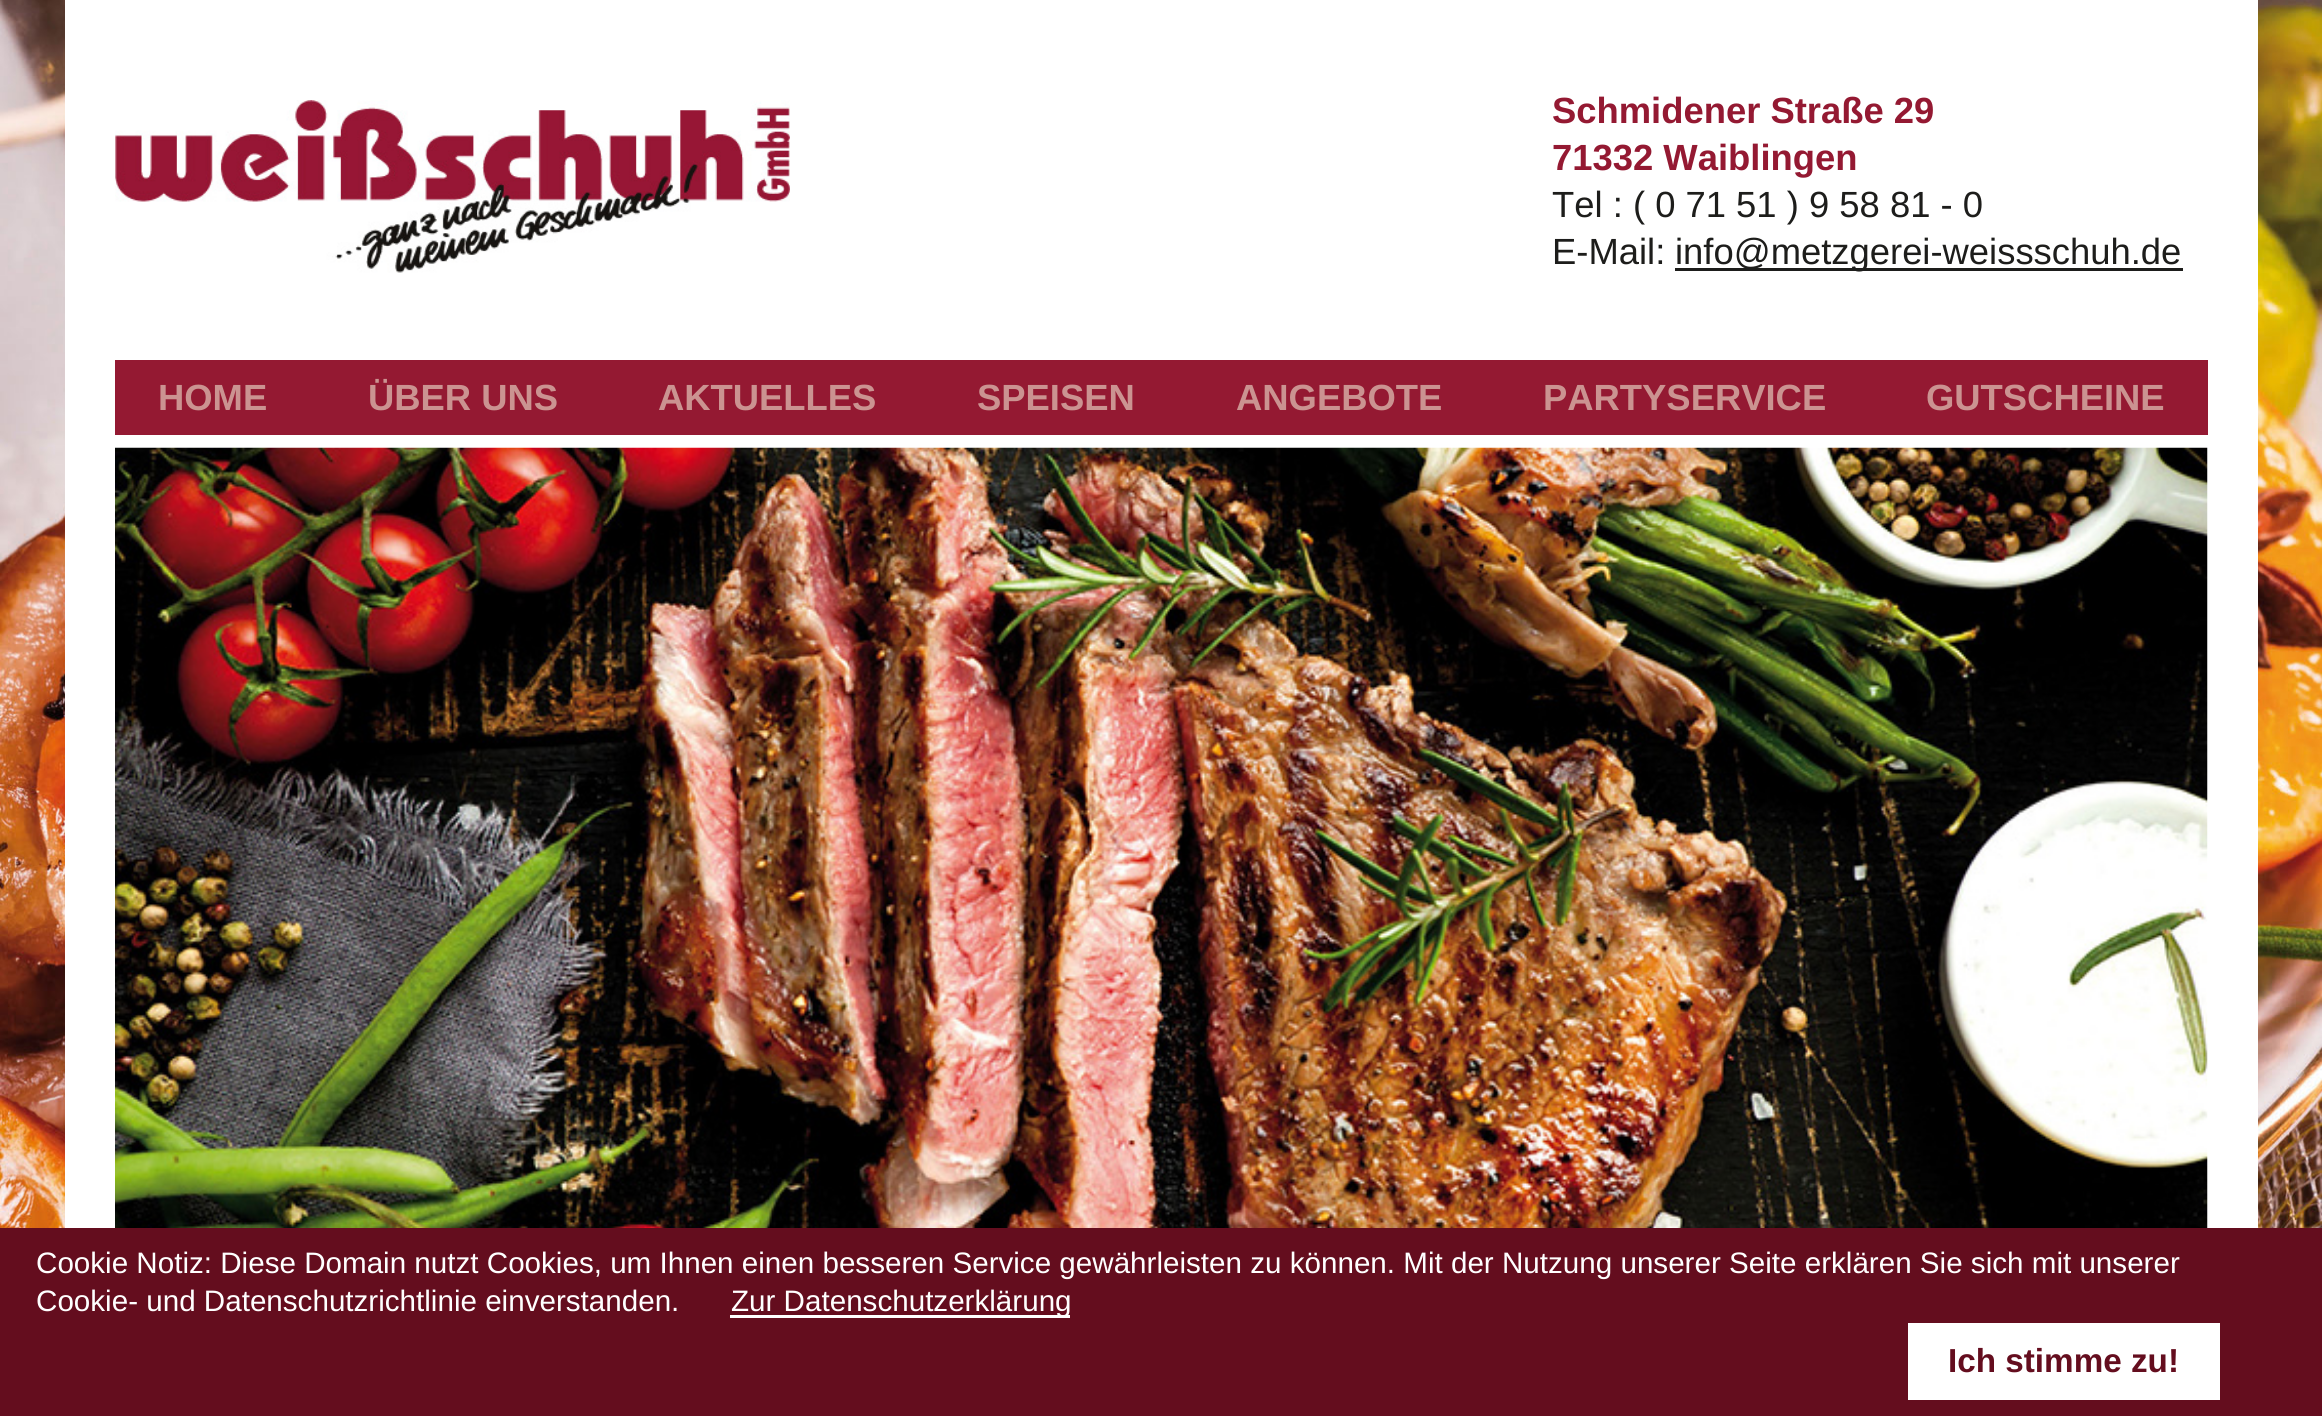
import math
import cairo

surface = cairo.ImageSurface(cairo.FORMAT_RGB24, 2322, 1416)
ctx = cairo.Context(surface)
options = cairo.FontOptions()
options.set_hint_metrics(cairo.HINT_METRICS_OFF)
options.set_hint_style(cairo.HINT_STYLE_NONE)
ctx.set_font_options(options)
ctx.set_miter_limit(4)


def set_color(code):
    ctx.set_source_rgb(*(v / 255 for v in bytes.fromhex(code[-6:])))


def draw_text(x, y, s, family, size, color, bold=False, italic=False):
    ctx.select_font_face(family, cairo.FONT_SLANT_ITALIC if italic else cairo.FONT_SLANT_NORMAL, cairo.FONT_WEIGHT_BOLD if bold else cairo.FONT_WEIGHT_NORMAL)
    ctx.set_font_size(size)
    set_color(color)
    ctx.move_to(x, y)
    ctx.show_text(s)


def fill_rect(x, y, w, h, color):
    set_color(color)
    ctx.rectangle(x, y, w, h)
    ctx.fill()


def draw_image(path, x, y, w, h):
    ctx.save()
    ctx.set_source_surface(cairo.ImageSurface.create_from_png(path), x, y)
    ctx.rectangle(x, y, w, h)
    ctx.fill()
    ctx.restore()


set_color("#ffffff")
ctx.paint()
draw_image("assets/img1.png", 0, 0, 2322, 1228)
fill_rect(65, 0, 2193, 1228, "#ffffff")
draw_image("assets/img2.png", 115, 100, 675, 173)
draw_text(1552, 123, "Schmidener Straße 29", "Liberation Sans", 36.4, "#941932", bold=True)
draw_text(1552, 170, "71332 Waiblingen", "Liberation Sans", 36.4, "#941932", bold=True)
draw_text(1552, 217, "Tel : ( 0 71 51 ) 9 58 81 - 0", "Liberation Sans", 36.4, "#1d1d1b")
draw_text(1552, 264, "E-Mail:", "Liberation Sans", 36.4, "#1d1d1b")
fill_rect(1675, 268, 508, 3, "#1d1d1b")
draw_text(1675, 264, "info@metzgerei-weissschuh.de", "Liberation Sans", 36.4, "#1d1d1b")
fill_rect(115, 360, 2093, 75, "#941932")
draw_text(158, 410, "HOME", "Liberation Sans", 36.4, "#cb9391", bold=True)
draw_text(368, 410, "ÜBER UNS", "Liberation Sans", 36.4, "#cb9391", bold=True)
draw_text(658, 410, "AKTUELLES", "Liberation Sans", 36.4, "#cb9391", bold=True)
draw_text(977, 410, "SPEISEN", "Liberation Sans", 36.4, "#cb9391", bold=True)
draw_text(1236, 410, "ANGEBOTE", "Liberation Sans", 36.4, "#cb9391", bold=True)
draw_text(1543, 410, "PARTYSERVICE", "Liberation Sans", 36.4, "#cb9391", bold=True)
draw_text(1926, 410, "GUTSCHEINE", "Liberation Sans", 36.4, "#cb9391", bold=True)
draw_image("assets/img3.png", 115, 447, 2093, 781)
fill_rect(0, 1228, 2322, 188, "#640d1e")
draw_text(36, 1273, "Cookie Notiz: Diese Domain nutzt Cookies, um Ihnen einen besseren Service gewährleisten zu können. Mit der Nutzung unserer Seite erklären Sie sich mit unserer", "Liberation Sans", 29.6, "#ffffff")
draw_text(36, 1311, "Cookie- und Datenschutzrichtlinie einverstanden.", "Liberation Sans", 29.6, "#ffffff")
fill_rect(730, 1315, 340, 3, "#ffffff")
draw_text(731, 1311, "Zur Datenschutzerklärung", "Liberation Sans", 29.6, "#ffffff")
fill_rect(1908, 1323, 312, 77, "#ffffff")
draw_text(1948, 1372, "Ich stimme zu!", "Liberation Sans", 33.25, "#640d1e", bold=True)
surface.write_to_png("output.png")
